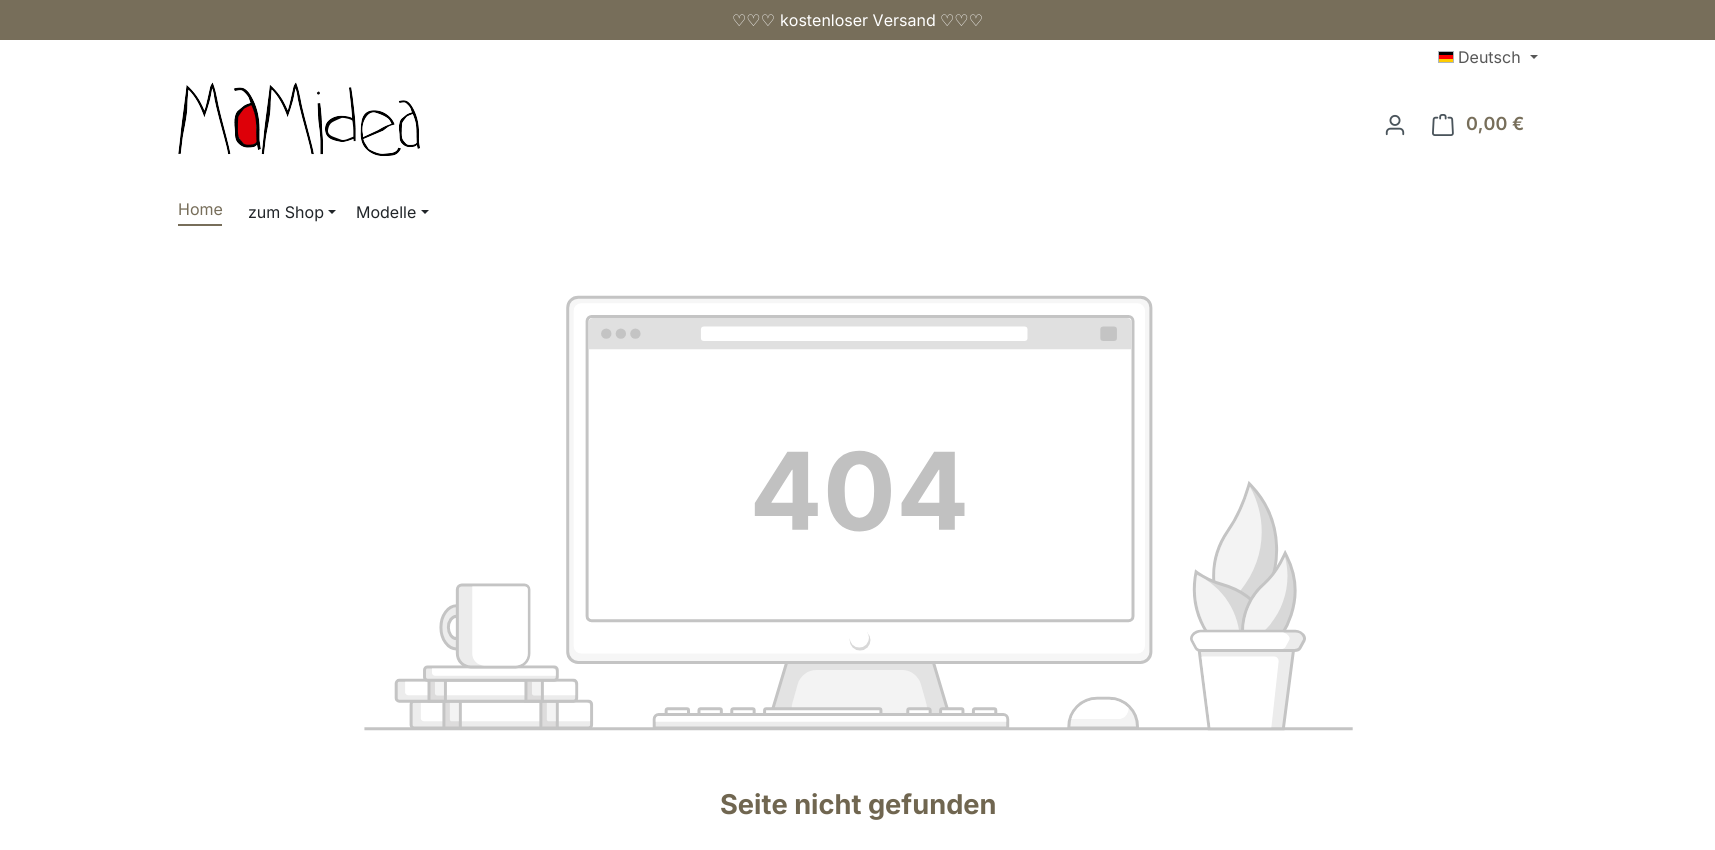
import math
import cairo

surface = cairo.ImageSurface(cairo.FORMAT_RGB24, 1715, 850)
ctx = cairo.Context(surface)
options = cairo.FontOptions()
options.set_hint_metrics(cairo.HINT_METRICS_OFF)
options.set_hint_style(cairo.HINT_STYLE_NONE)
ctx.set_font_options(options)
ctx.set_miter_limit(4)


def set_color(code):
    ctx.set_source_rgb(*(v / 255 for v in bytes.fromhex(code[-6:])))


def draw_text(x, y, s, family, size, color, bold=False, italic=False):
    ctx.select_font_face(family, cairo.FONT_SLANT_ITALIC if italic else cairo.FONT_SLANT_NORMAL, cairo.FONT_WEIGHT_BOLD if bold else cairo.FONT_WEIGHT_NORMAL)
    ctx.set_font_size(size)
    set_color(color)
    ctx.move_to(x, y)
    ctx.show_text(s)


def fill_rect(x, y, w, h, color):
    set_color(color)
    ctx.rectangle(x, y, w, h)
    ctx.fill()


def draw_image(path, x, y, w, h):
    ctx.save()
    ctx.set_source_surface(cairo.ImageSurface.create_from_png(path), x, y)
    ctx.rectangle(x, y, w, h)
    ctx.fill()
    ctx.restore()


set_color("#ffffff")
ctx.paint()
fill_rect(0, 0, 1715, 40, "#776e5a")
draw_text(732, 26, "♡♡♡", "DejaVu Sans", 16, "#ffffff")
draw_text(780, 26, "kostenloser Versand", "Inter", 16, "#ffffff")
draw_text(940, 26, "♡♡♡", "DejaVu Sans", 16, "#ffffff")
fill_rect(1439, 52, 14, 3, "#000000")
fill_rect(1439, 55, 14, 4, "#ff0000")
fill_rect(1439, 59, 14, 3, "#ffcc00")
ctx.rectangle(1438.5, 51.5, 15, 11)
set_color("#adb5bd")
ctx.set_line_width(1)
ctx.stroke()
draw_text(1458, 63, "Deutsch", "Inter", 16, "#575757")
ctx.new_path()
ctx.move_to(1530, 55)
ctx.line_to(1538, 55)
ctx.line_to(1534, 59)
ctx.close_path()
ctx.fill()
draw_image("assets/img1.png", 178, 82, 242, 75)
draw_image("assets/img2.png", 1385, 114, 20, 22)
draw_image("assets/img3.png", 1432, 114, 22, 22)
draw_text(1466, 130, "0,00 €", "Inter SemiBold", 18, "#776e5a")
fill_rect(178, 224, 44, 2, "#776e5a")
draw_text(178, 215, "Home", "Inter", 16, "#776e5a")
draw_text(248, 218, "zum Shop", "Inter", 16, "#212529")
ctx.new_path()
ctx.move_to(328, 210)
ctx.line_to(336, 210)
ctx.line_to(332, 214)
ctx.close_path()
ctx.fill()
draw_text(356, 218, "Modelle", "Inter", 16, "#212529")
ctx.new_path()
ctx.move_to(421, 210)
ctx.line_to(429, 210)
ctx.line_to(425, 214)
ctx.close_path()
ctx.fill()
draw_image("assets/img4.png", 364, 295, 989, 436)
draw_text(720, 814, "Seite nicht gefunden", "Inter", 27.25, "#706650", bold=True)
surface.write_to_png("output.png")
